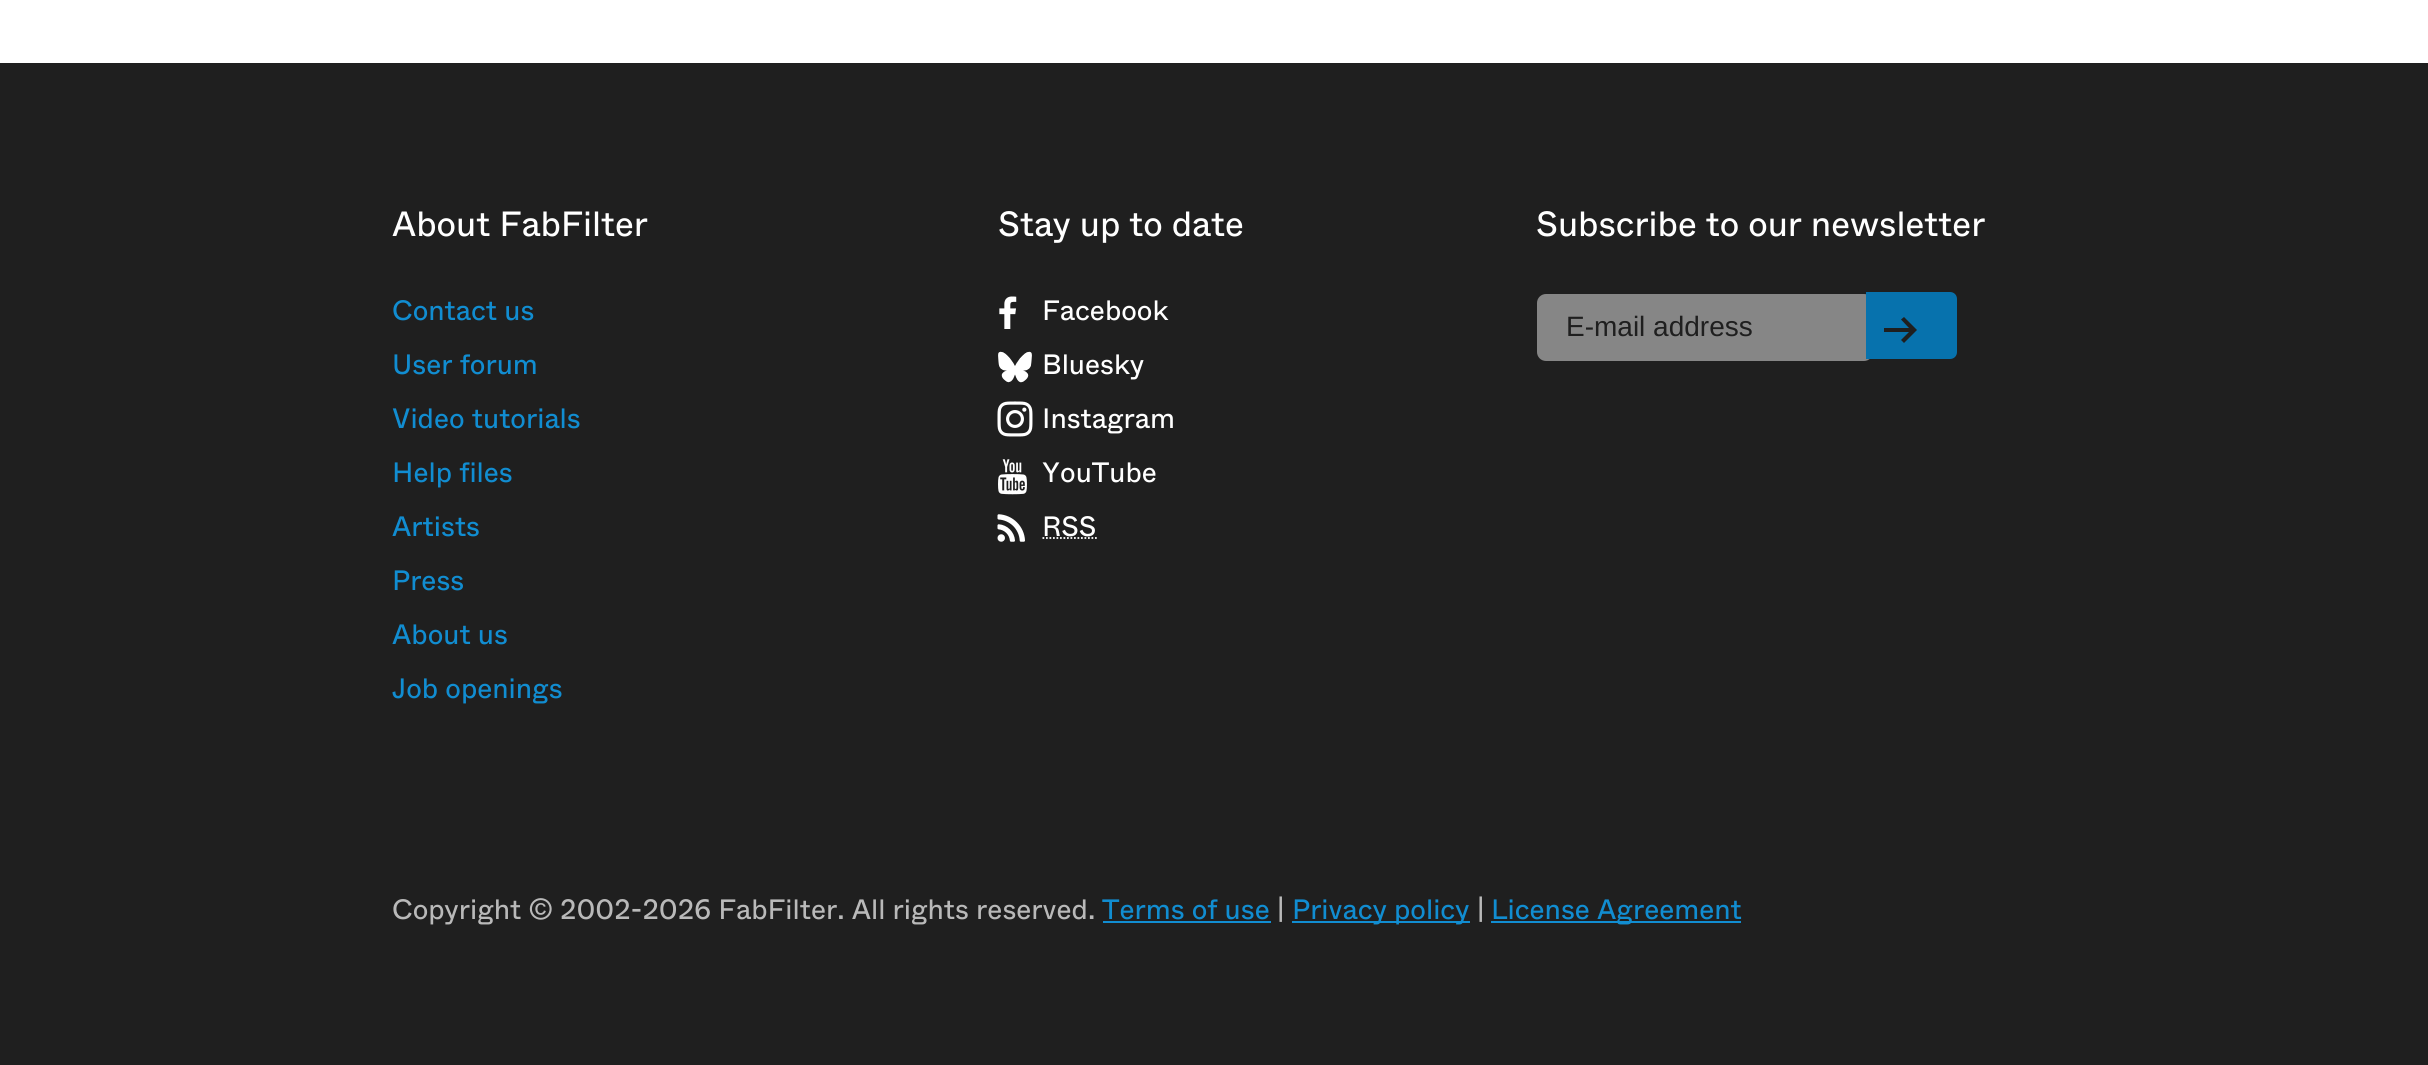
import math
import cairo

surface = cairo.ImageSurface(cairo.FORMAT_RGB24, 2428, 1065)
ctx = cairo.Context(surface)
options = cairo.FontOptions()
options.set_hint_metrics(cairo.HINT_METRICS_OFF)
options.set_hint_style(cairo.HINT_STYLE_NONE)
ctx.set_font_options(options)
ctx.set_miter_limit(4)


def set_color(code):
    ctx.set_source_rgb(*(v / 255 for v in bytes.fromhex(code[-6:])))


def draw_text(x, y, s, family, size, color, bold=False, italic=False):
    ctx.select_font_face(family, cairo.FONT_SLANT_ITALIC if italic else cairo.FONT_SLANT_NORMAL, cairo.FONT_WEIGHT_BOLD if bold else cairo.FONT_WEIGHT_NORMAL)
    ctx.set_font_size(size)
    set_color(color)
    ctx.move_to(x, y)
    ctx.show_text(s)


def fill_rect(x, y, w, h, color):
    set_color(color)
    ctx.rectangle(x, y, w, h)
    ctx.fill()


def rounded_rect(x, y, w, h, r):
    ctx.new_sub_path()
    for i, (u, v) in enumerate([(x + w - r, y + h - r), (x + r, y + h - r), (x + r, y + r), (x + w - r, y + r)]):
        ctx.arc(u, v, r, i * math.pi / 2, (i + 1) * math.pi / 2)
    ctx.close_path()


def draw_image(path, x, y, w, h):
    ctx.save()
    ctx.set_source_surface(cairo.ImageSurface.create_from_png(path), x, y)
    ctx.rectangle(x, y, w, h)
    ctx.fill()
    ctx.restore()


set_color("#ffffff")
ctx.paint()
fill_rect(0, 63, 2428, 1002, "#1f1f1f")
draw_text(392, 236, "About FabFilter", "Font", 35, "#ffffff")
draw_text(392, 320, "Contact us", "Font", 28, "#118dd1")
draw_text(392, 374, "User forum", "Font", 28, "#118dd1")
draw_text(392, 428, "Video tutorials", "Font", 28, "#118dd1")
draw_text(392, 482, "Help files", "Font", 28, "#118dd1")
draw_text(392, 536, "Artists", "Font", 28, "#118dd1")
draw_text(392, 590, "Press", "Font", 28, "#118dd1")
draw_text(392, 644, "About us", "Font", 28, "#118dd1")
draw_text(392, 698, "Job openings", "Font", 28, "#118dd1")
draw_text(998, 236, "Stay up to date", "Font", 35, "#ffffff")
draw_image("assets/img1.png", 999, 296, 18, 33)
draw_text(1042, 320, "Facebook", "Font", 28, "#ffffff")
draw_image("assets/img2.png", 998, 351, 34, 32)
draw_text(1042, 374, "Bluesky", "Font", 28, "#ffffff")
draw_image("assets/img3.png", 997, 401, 36, 36)
draw_text(1042, 428, "Instagram", "Font", 28, "#ffffff")
draw_image("assets/img4.png", 998, 459, 29, 36)
draw_text(1042, 482, "YouTube", "Font", 28, "#ffffff")
draw_image("assets/img5.png", 997, 514, 28, 28)
draw_text(1042, 536, "RSS", "Font", 28, "#ffffff")
ctx.new_path()
ctx.move_to(1042.5, 538)
ctx.line_to(1097, 538)
ctx.set_line_width(1.8)
ctx.set_dash([1.75, 1.75])
ctx.stroke()
draw_text(1536, 236, "Subscribe to our newsletter", "Font", 35, "#ffffff")
set_color("#868686")
rounded_rect(1538, 295, 334, 65, 8)
ctx.fill_preserve()
ctx.set_line_width(2)
ctx.set_dash([])
ctx.stroke()
draw_text(1566, 336, "E-mail address", "Liberation Sans", 28, "#1f1f1f")
set_color("#0772ad")
ctx.new_path()
ctx.move_to(1866, 292)
ctx.line_to(1950, 292)
ctx.curve_to(1954, 292, 1957, 295, 1957, 299)
ctx.line_to(1957, 352)
ctx.curve_to(1957, 356, 1954, 359, 1950, 359)
ctx.line_to(1866, 359)
ctx.close_path()
ctx.fill()
set_color("#1f1f1f")
ctx.new_path()
ctx.move_to(1884, 328)
ctx.line_to(1884, 332)
ctx.line_to(1909, 332)
ctx.line_to(1901, 340)
ctx.line_to(1904, 343)
ctx.line_to(1917, 330)
ctx.line_to(1904, 317)
ctx.line_to(1901, 319.5)
ctx.line_to(1909, 328)
ctx.close_path()
ctx.fill()
draw_text(392, 919, "Copyright © 2002-2026 FabFilter. All rights reserved.", "Font", 28, "#b9b9b9")
draw_text(1102, 919, "Terms of use", "Font", 28, "#118dd1")
fill_rect(1103, 921, 168, 2, "#118dd1")
draw_text(1277, 919, "|", "Font", 28, "#b9b9b9")
fill_rect(1292, 921, 178, 2, "#118dd1")
draw_text(1292, 919, "Privacy policy", "Font", 28, "#118dd1")
draw_text(1477, 919, "|", "Font", 28, "#b9b9b9")
fill_rect(1491, 921, 250, 2, "#118dd1")
draw_text(1491, 919, "License Agreement", "Font", 28, "#118dd1")
surface.write_to_png("output.png")
